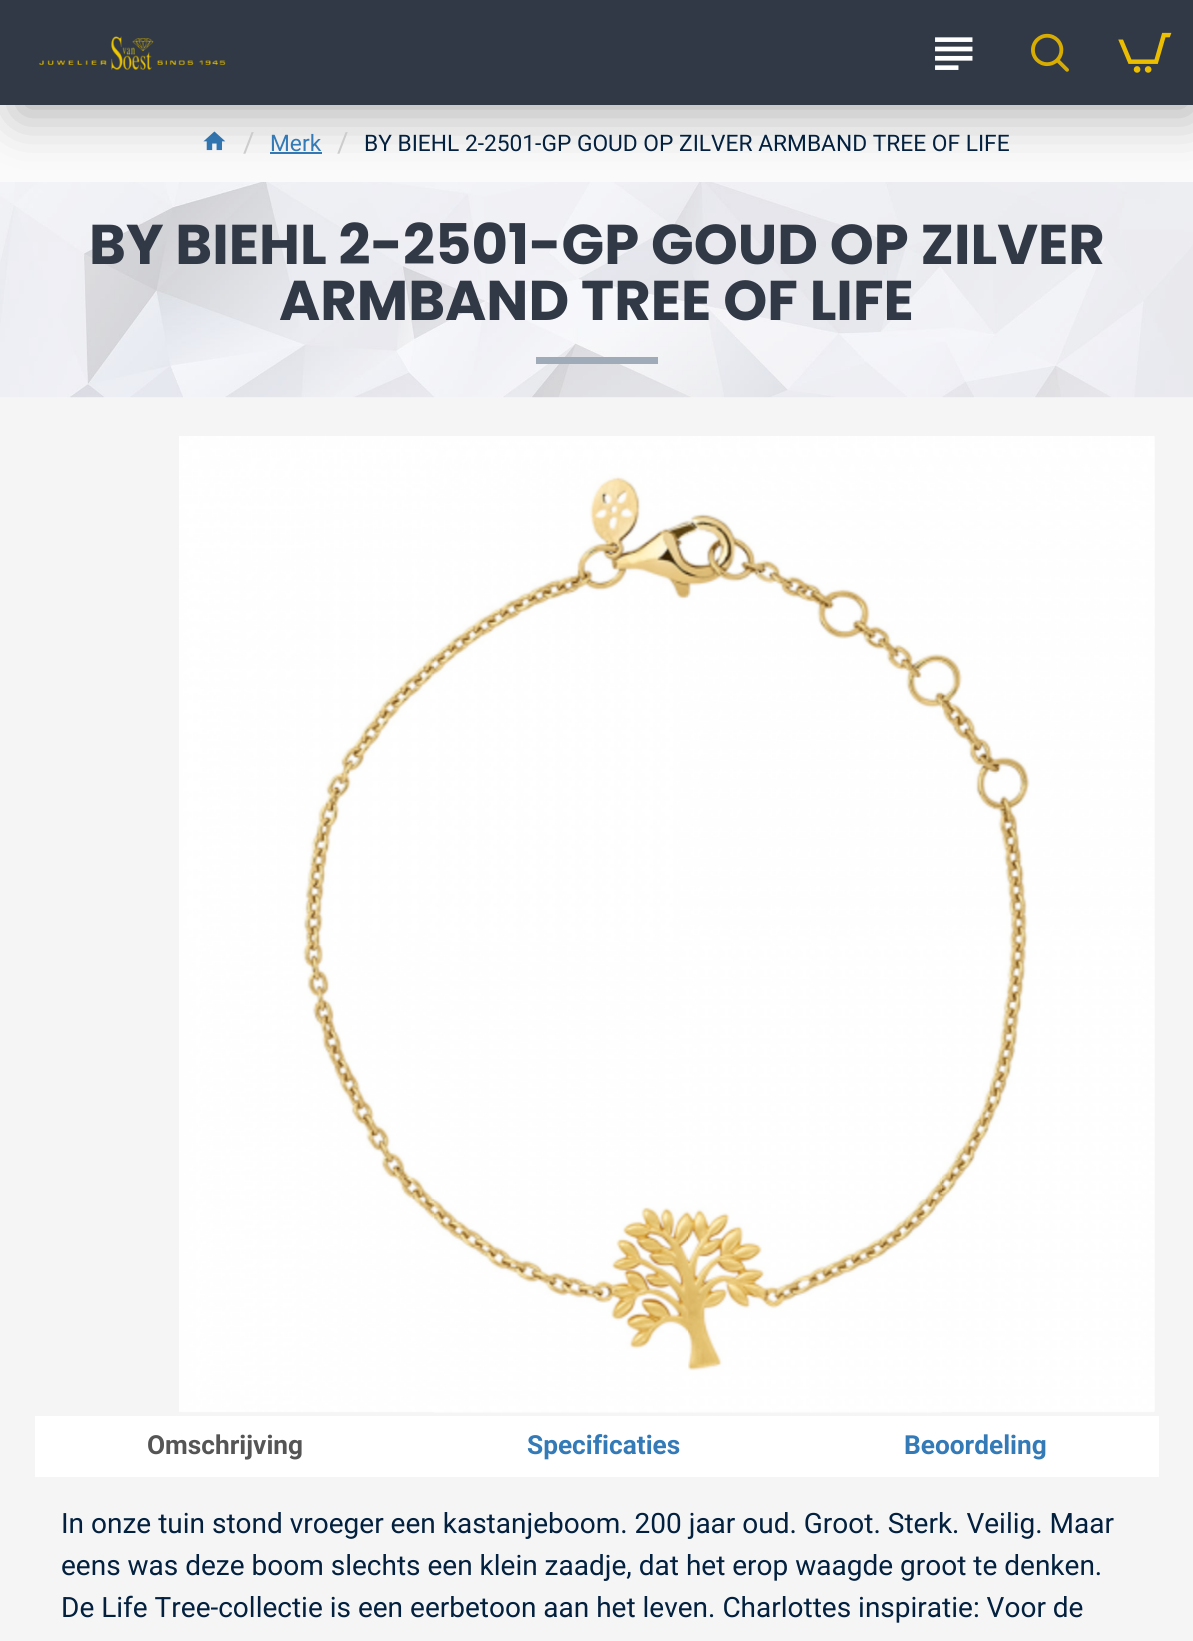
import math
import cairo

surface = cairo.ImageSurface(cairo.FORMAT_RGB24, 1193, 1641)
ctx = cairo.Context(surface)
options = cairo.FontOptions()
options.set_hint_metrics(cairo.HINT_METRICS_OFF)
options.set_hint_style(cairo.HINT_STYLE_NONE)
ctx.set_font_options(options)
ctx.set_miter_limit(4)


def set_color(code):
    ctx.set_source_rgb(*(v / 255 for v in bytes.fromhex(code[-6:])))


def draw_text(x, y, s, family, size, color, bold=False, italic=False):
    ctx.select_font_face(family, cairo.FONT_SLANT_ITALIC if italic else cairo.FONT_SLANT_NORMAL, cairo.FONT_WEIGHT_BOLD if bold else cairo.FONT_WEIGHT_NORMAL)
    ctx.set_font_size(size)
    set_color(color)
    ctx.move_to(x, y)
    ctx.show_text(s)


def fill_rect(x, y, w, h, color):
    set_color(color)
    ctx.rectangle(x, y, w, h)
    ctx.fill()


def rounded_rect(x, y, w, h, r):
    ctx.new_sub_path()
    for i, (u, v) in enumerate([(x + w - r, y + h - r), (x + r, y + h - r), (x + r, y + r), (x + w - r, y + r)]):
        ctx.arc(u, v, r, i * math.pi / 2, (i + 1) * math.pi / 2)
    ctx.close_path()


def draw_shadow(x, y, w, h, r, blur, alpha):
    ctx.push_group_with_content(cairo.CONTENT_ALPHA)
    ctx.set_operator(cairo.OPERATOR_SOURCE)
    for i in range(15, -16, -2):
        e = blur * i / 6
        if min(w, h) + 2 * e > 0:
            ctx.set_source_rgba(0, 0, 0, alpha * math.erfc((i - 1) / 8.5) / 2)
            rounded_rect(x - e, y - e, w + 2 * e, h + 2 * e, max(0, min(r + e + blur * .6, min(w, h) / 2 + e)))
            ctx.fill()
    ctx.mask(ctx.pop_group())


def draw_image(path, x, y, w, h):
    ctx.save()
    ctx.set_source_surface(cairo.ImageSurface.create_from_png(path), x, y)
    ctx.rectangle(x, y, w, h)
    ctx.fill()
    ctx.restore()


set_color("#fafafa")
ctx.paint()
draw_image("assets/img5.png", 203, 131, 23, 20)
fill_rect(270, 152, 52, 2, "#337ab7")
fill_rect(0, 397, 1193, 1244, "#f5f5f5")
draw_image("assets/img6.png", 0, 182, 1193, 216)
set_color("#000000")
draw_shadow(18, 26, 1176, 88, 0, 26, 0.3)
fill_rect(0, 0, 1193, 105, "#313846")
draw_image("assets/img1.png", 38, 36, 188, 34)
draw_image("assets/img2.png", 935, 37, 38, 33)
draw_image("assets/img3.png", 1031, 33, 38, 39)
draw_image("assets/img4.png", 1118, 32, 54, 41)
draw_text(243, 152, "/", "Roboto", 28, "#cccccc")
draw_text(270, 151, "Merk", "Roboto", 22.75, "#337ab7")
draw_text(337, 152, "/", "Roboto", 28, "#cccccc")
draw_text(364, 151, "BY BIEHL 2-2501-GP GOUD OP ZILVER ARMBAND TREE OF LIFE", "Roboto", 22.75, "#03213f")
draw_text(89, 264, "BY BIEHL 2-2501-GP GOUD OP ZILVER", "Poppins", 56, "#313846", bold=True)
draw_text(279, 320, "ARMBAND TREE OF LIFE", "Poppins", 56, "#313846", bold=True)
fill_rect(536, 357, 122, 7, "#9fabb8")
draw_image("assets/img7.png", 179, 436, 976, 977)
fill_rect(35, 1416, 1124, 61, "#ffffff")
draw_text(147, 1454, "Omschrijving", "Roboto", 26.25, "#555555", bold=True)
draw_text(527, 1454, "Specificaties", "Roboto", 26.25, "#337ab7", bold=True)
draw_text(904, 1454, "Beoordeling", "Roboto", 26.25, "#337ab7", bold=True)
draw_text(61, 1533, "In onze tuin stond vroeger een kastanjeboom. 200 jaar oud. Groot. Sterk. Veilig. Maar", "Roboto", 28, "#03213f")
draw_text(61, 1575, "eens was deze boom slechts een klein zaadje, dat het erop waagde groot te denken.", "Roboto", 28, "#03213f")
draw_text(61, 1617, "De Life Tree-collectie is een eerbetoon aan het leven. Charlottes inspiratie: Voor de", "Roboto", 28, "#03213f")
surface.write_to_png("output.png")
